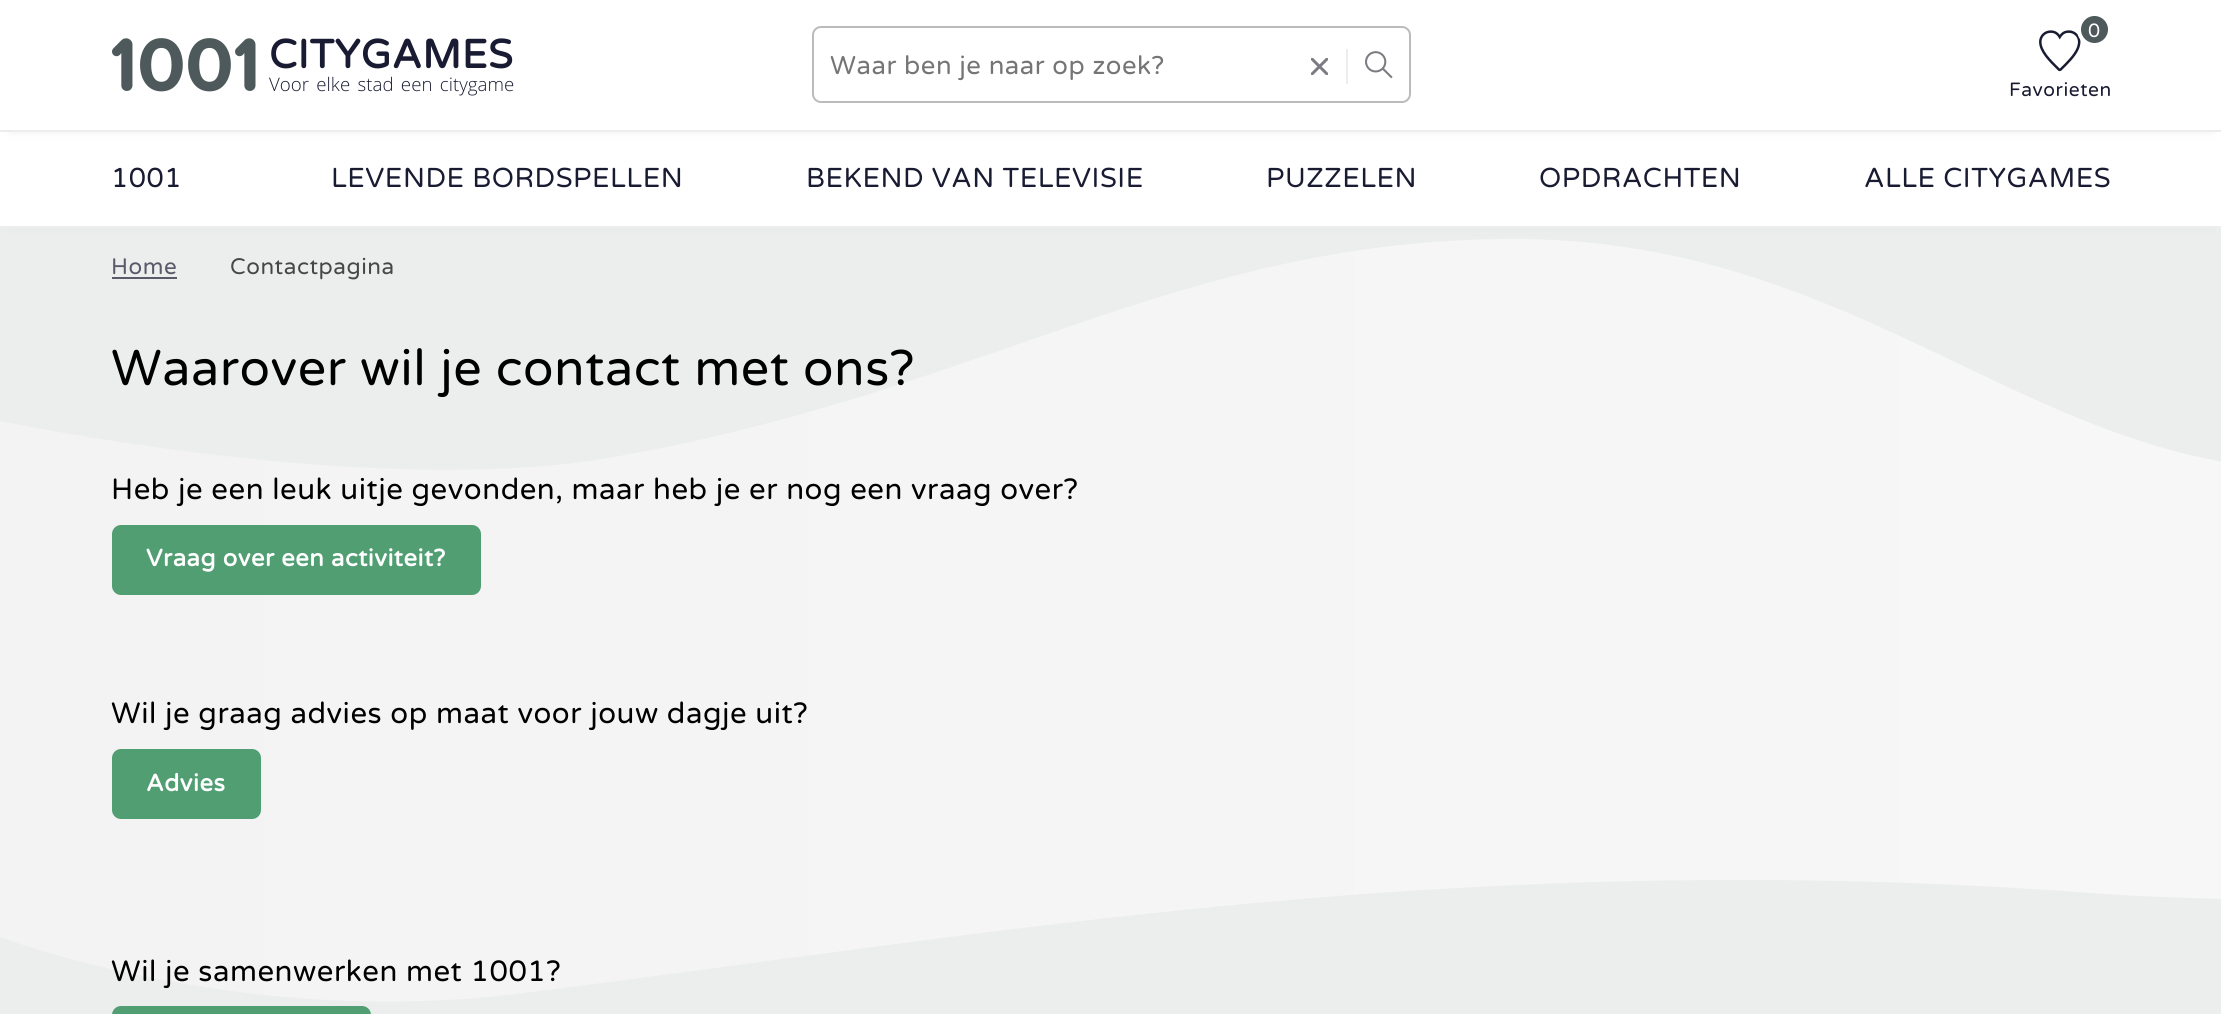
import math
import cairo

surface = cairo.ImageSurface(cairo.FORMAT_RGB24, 2221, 1014)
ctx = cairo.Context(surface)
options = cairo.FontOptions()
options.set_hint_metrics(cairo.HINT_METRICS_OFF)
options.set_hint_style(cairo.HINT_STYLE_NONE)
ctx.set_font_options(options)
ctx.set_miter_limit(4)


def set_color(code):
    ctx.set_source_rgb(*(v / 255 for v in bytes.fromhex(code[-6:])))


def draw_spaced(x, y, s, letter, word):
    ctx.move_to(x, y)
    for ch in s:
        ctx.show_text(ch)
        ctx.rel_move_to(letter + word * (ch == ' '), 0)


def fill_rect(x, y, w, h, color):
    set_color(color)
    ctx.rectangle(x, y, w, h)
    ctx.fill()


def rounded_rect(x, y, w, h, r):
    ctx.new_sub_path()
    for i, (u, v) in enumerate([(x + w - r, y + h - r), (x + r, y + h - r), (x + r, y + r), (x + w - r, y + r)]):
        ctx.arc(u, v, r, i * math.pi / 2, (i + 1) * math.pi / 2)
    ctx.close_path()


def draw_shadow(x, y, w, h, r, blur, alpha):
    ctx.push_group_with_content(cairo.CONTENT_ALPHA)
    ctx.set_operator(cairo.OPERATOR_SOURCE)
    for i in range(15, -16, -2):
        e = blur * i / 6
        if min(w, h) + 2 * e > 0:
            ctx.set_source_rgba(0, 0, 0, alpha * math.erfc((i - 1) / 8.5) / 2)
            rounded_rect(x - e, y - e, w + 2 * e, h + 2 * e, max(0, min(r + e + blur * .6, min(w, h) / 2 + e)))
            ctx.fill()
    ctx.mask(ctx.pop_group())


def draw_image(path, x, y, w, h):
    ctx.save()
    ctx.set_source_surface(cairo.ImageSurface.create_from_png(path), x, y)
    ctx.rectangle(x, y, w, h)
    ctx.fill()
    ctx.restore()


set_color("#eceded")
ctx.paint()
gradient = cairo.LinearGradient(0, 239, 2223, 239)
gradient.add_color_stop_rgba(0, 0.953, 0.953, 0.953, 1)
gradient.add_color_stop_rgba(1, 0.969, 0.969, 0.969, 1)
ctx.set_source(gradient)
ctx.new_path()
ctx.move_to(0, 421)
ctx.curve_to(0, 421, 371, 499, 608, 458)
ctx.curve_to(986, 393, 1177, 239, 1514, 239)
ctx.curve_to(1808, 239, 1976, 404, 2190, 455)
ctx.line_to(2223, 462)
ctx.line_to(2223, 899)
ctx.curve_to(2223, 899, 2147, 897, 2105, 894)
ctx.curve_to(1464, 845, 994, 935, 515, 994)
ctx.curve_to(239, 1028, 0, 937, 0, 937)
ctx.close_path()
ctx.fill()
set_color("#e3e3e3")
draw_shadow(11, 151, 2201, 75, 0, 4.5, 1)
fill_rect(0, 132, 2221, 94, "#ffffff")
set_color("#e3e3e3")
draw_shadow(11, 19, 2201, 111, 0, 4.5, 1)
fill_rect(0, 0, 2221, 130, "#ffffff")
fill_rect(10, 130, 2211, 2, "#ededed")
draw_image("assets/img1.png", 112, 38, 144, 54)
ctx.select_font_face("Varela Round", cairo.FONT_SLANT_NORMAL, cairo.FONT_WEIGHT_BOLD)
ctx.set_font_size(40.25)
set_color("#191b32")
draw_spaced(269, 68, "CITYGAMES", 0.53, 0)
ctx.select_font_face("Open Sans Light")
ctx.set_font_size(18.7)
draw_spaced(269, 91, "Voor elke stad een citygame", 0, 2.5)
rounded_rect(813, 27, 597, 75, 8)
set_color("#bbbbbb")
ctx.stroke()
ctx.select_font_face("Varela Round")
ctx.set_font_size(25.7)
set_color("#757575")
draw_spaced(830, 74, "Waar ben je naar op zoek?", 0.53, 0)
draw_image("assets/img2.png", 1311, 58, 17, 17)
fill_rect(1346, 49, 2, 35, "#ededed")
draw_image("assets/img3.png", 1365, 51, 28, 28)
draw_image("assets/img4.png", 2039, 30, 42, 42)
set_color("#4d595b")
ctx.arc(2094.5, 29.5, 15.5, 0, 2 * math.pi)
ctx.fill_preserve()
set_color("#ffffff")
ctx.set_line_width(4)
ctx.stroke()
ctx.set_font_size(19.25)
draw_spaced(2088, 37, "0", 0.53, 0)
set_color("#191b32")
draw_spaced(2009, 96, "Favorieten", 0.53, 0)
fill_rect(10, 226, 2211, 2, "#ededed")
ctx.set_font_size(27.4)
set_color("#191b32")
draw_spaced(111, 187, "1001", 0.53, 0)
draw_spaced(331, 187, "LEVENDE BORDSPELLEN", 0.53, 0)
draw_spaced(806, 187, "BEKEND VAN TELEVISIE", 0.53, 0)
draw_spaced(1266, 187, "PUZZELEN", 0.53, 0)
draw_spaced(1539, 187, "OPDRACHTEN", 0.53, 0)
draw_spaced(1864, 187, "ALLE CITYGAMES", 0.53, 0)
ctx.set_font_size(22.5)
set_color("#585a6a")
draw_spaced(111, 274, "Home", 0.53, 0)
fill_rect(112, 277, 65, 2, "#585a6a")
set_color("#474747")
draw_spaced(230, 274, "Contactpagina", 0.53, 0)
ctx.set_font_size(50.2)
set_color("#000000")
draw_spaced(111, 385, "Waarover wil je contact met ons?", 0.53, 0)
ctx.set_font_size(29.35)
draw_spaced(111, 499, "Heb je een leuk uitje gevonden, maar heb je er nog een vraag over?", 0.53, 0)
set_color("#519e73")
rounded_rect(112, 525, 369, 70, 9)
ctx.fill()
ctx.select_font_face("Varela Round", cairo.FONT_SLANT_NORMAL, cairo.FONT_WEIGHT_BOLD)
ctx.set_font_size(23.8)
set_color("#ffffff")
draw_spaced(146, 566, "Vraag over een activiteit?", 0.53, 0)
ctx.select_font_face("Varela Round")
ctx.set_font_size(29.35)
set_color("#000000")
draw_spaced(111, 723, "Wil je graag advies op maat voor jouw dagje uit?", 0.53, 0)
set_color("#519e73")
rounded_rect(112, 749, 149, 70, 9)
ctx.fill()
ctx.select_font_face("Varela Round", cairo.FONT_SLANT_NORMAL, cairo.FONT_WEIGHT_BOLD)
ctx.set_font_size(23.8)
set_color("#ffffff")
draw_spaced(146, 791, "Advies", 0.53, 0)
ctx.select_font_face("Varela Round")
ctx.set_font_size(29.35)
set_color("#000000")
draw_spaced(111, 981, "Wil je samenwerken met 1001?", 0.53, 0)
set_color("#519e73")
rounded_rect(112, 1006, 259, 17, 9)
ctx.fill()
surface.write_to_png("output.png")
